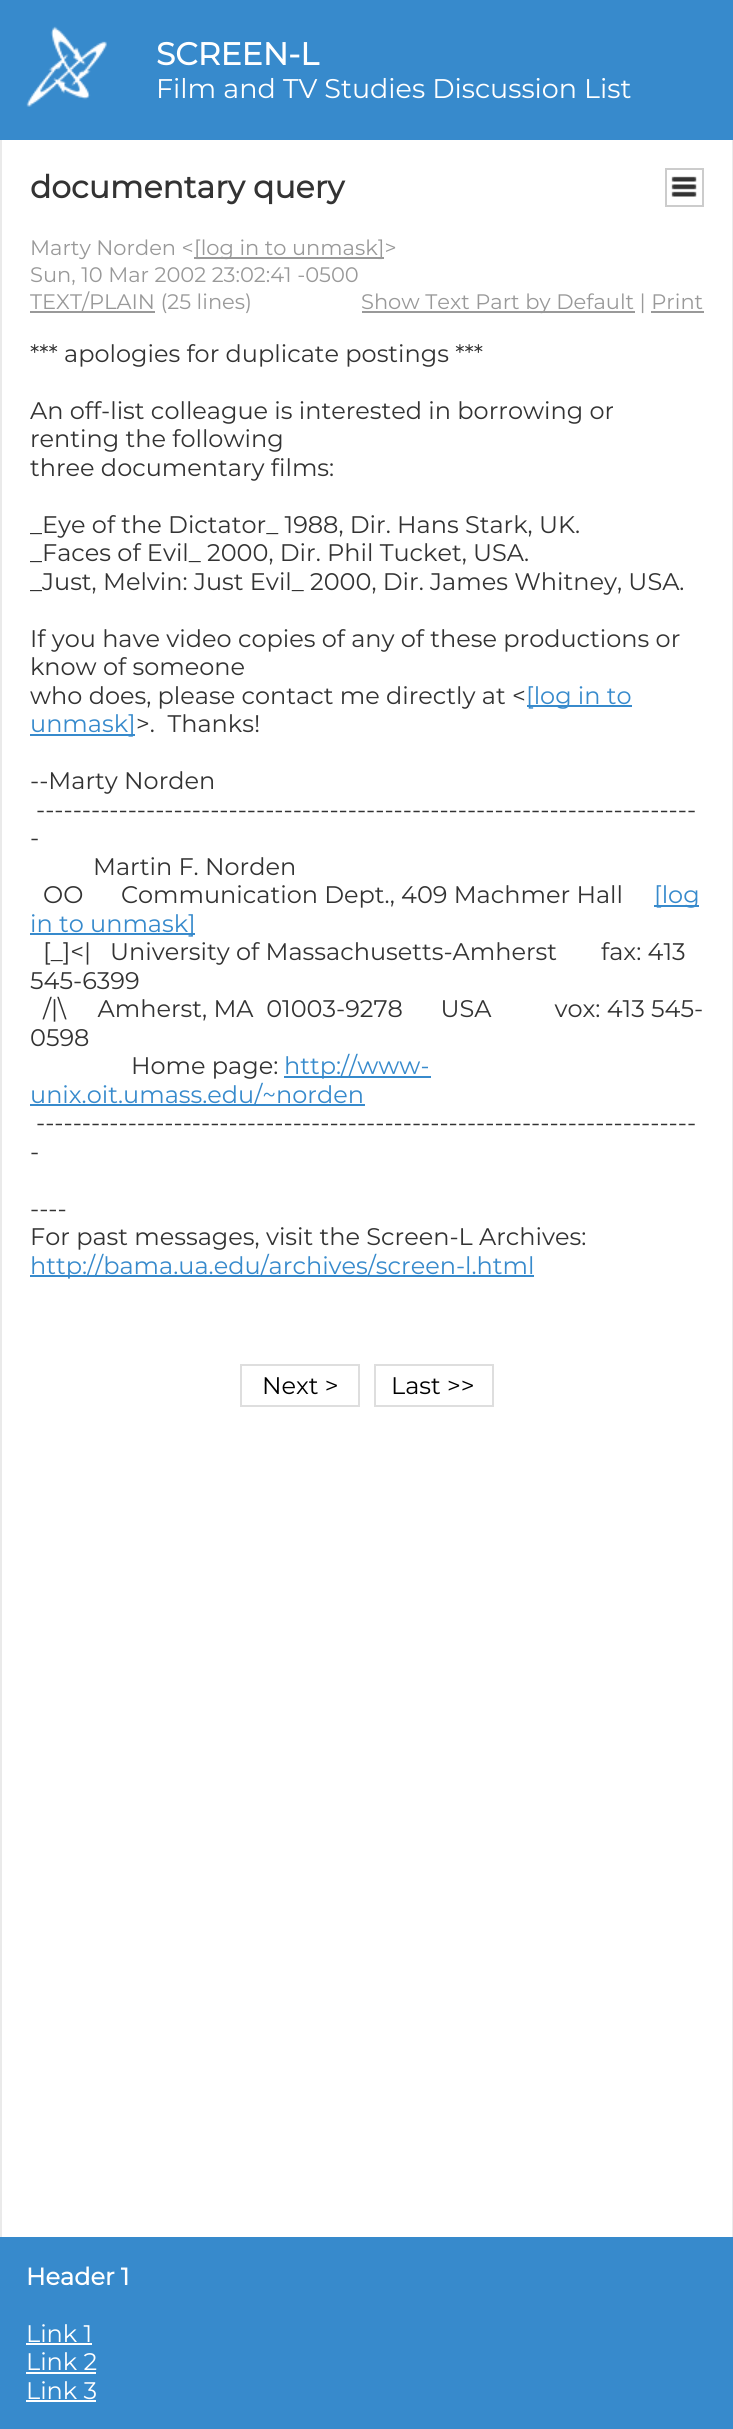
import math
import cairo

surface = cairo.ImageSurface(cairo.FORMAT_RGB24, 733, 2429)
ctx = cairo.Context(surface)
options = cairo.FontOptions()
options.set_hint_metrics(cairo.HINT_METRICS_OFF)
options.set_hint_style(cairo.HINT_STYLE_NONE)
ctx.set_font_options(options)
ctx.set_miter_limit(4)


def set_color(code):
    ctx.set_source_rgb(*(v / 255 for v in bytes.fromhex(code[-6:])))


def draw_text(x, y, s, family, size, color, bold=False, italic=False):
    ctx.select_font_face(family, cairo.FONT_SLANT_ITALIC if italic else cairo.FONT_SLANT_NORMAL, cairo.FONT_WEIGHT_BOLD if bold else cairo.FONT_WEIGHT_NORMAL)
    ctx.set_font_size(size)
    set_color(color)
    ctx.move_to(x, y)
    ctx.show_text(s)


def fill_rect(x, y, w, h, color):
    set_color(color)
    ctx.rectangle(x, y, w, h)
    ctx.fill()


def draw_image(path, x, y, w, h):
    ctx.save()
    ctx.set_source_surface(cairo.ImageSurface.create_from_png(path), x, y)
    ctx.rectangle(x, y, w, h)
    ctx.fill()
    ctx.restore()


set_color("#378acc")
ctx.paint()
draw_image("assets/img1.png", 26, 26, 81, 81)
draw_text(156, 65, "SCREEN-L", "Montserrat", 31.5, "#ffffff", bold=True)
draw_text(156, 98, "Film and TV Studies Discussion List", "Montserrat Thin", 27, "#ffffff")
fill_rect(2, 140, 730, 2097, "#ffffff")
fill_rect(732, 140, 1, 2097, "#eaeaea")
fill_rect(0, 140, 2, 2097, "#eaeaea")
ctx.rectangle(666, 169, 37, 37)
set_color("#cccccc")
ctx.stroke()
draw_image("assets/img2.png", 671, 176, 26, 21)
draw_text(30, 198, "documentary query", "Montserrat", 31.5, "#333333", bold=True)
draw_text(30, 255, "Marty Norden <", "Montserrat Thin", 21, "#999999")
fill_rect(194, 257, 190, 2, "#999999")
draw_text(194, 255, "[log in to unmask]>", "Montserrat Thin", 21, "#999999")
draw_text(30, 282, "Sun, 10 Mar 2002 23:02:41 -0500", "Montserrat Thin", 21, "#999999")
fill_rect(30, 311, 125, 2, "#999999")
draw_text(30, 309, "TEXT/PLAIN (25 lines)", "Montserrat Thin", 21, "#999999")
fill_rect(362, 311, 273, 2, "#999999")
draw_text(361, 309, "Show Text Part by Default | Print", "Montserrat Thin", 21, "#999999")
fill_rect(651, 311, 53, 2, "#999999")
draw_text(30, 362, "*** apologies for duplicate postings ***", "Montserrat Thin", 24, "#333333")
draw_text(30, 419, "An off-list colleague is interested in borrowing or", "Montserrat Thin", 24, "#333333")
draw_text(30, 447, "renting the following", "Montserrat Thin", 24, "#333333")
draw_text(30, 476, "three documentary films:", "Montserrat Thin", 24, "#333333")
draw_text(30, 533, "_Eye of the Dictator_ 1988, Dir. Hans Stark, UK.", "Montserrat Thin", 24, "#333333")
draw_text(30, 561, "_Faces of Evil_ 2000, Dir. Phil Tucket, USA.", "Montserrat Thin", 24, "#333333")
draw_text(30, 590, "_Just, Melvin: Just Evil_ 2000, Dir. James Whitney, USA.", "Montserrat Thin", 24, "#333333")
draw_text(30, 647, "If you have video copies of any of these productions or", "Montserrat Thin", 24, "#333333")
draw_text(30, 675, "know of someone", "Montserrat Thin", 24, "#333333")
draw_text(30, 704, "who does, please contact me directly at <", "Montserrat Thin", 24, "#333333")
fill_rect(527, 705, 105, 2, "#378acc")
draw_text(526, 704, "[log in to", "Montserrat Thin", 24, "#378acc")
fill_rect(30, 734, 105, 2, "#378acc")
draw_text(30, 732, "unmask]", "Montserrat Thin", 24, "#378acc")
draw_text(136, 732, ">.  Thanks!", "Montserrat Thin", 24, "#333333")
draw_text(30, 789, "--Marty Norden", "Montserrat Thin", 24, "#333333")
draw_text(36, 818, "------------------------------------------------------------------------", "Montserrat Thin", 24, "#333333")
draw_text(30, 846, "-", "Montserrat Thin", 24, "#333333")
draw_text(93, 875, "Martin F. Norden", "Montserrat Thin", 24, "#333333")
draw_text(43, 903, "OO      Communication Dept., 409 Machmer Hall", "Montserrat Thin", 24, "#333333")
fill_rect(654, 905, 45, 2, "#378acc")
draw_text(654, 903, "[log", "Montserrat Thin", 24, "#378acc")
fill_rect(30, 933, 165, 2, "#378acc")
draw_text(30, 932, "in to unmask]", "Montserrat Thin", 24, "#378acc")
draw_text(43, 960, "[_]<|   University of Massachusetts-Amherst       fax: 413", "Montserrat Thin", 24, "#333333")
draw_text(30, 989, "545-6399", "Montserrat Thin", 24, "#333333")
draw_text(43, 1017, "/|\\     Amherst, MA  01003-9278      USA          vox: 413 545-", "Montserrat Thin", 24, "#333333")
draw_text(30, 1046, "0598", "Montserrat Thin", 24, "#333333")
draw_text(131, 1074, "Home page:", "Montserrat Thin", 24, "#333333")
fill_rect(284, 1076, 147, 2, "#378acc")
draw_text(284, 1074, "http://www-", "Montserrat Thin", 24, "#378acc")
fill_rect(30, 1104, 335, 2, "#378acc")
draw_text(30, 1103, "unix.oit.umass.edu/~norden", "Montserrat Thin", 24, "#378acc")
draw_text(36, 1131, "------------------------------------------------------------------------", "Montserrat Thin", 24, "#333333")
draw_text(30, 1160, "-", "Montserrat Thin", 24, "#333333")
draw_text(30, 1217, "----", "Montserrat Thin", 24, "#333333")
draw_text(30, 1245, "For past messages, visit the Screen-L Archives:", "Montserrat Thin", 24, "#333333")
fill_rect(30, 1275, 504, 2, "#378acc")
draw_text(30, 1274, "http://bama.ua.edu/archives/screen-l.html", "Montserrat Thin", 24, "#378acc")
ctx.rectangle(241, 1365, 118, 41)
set_color("#dedede")
ctx.stroke()
draw_text(262, 1394, "Next >", "Montserrat Thin", 24, "#000000")
ctx.rectangle(375, 1365, 118, 41)
set_color("#dedede")
ctx.stroke()
draw_text(391, 1394, "Last >>", "Montserrat Thin", 24, "#000000")
draw_text(26, 2285, "Header 1", "Montserrat", 24, "#ffffff", bold=True)
draw_text(26, 2342, "Link 1", "Montserrat Thin", 24, "#ffffff")
fill_rect(26, 2343, 66, 2, "#ffffff")
draw_text(26, 2370, "Link 2", "Montserrat Thin", 24, "#ffffff")
fill_rect(26, 2372, 70, 2, "#ffffff")
draw_text(26, 2399, "Link 3", "Montserrat Thin", 24, "#ffffff")
fill_rect(26, 2400, 70, 2, "#ffffff")
surface.write_to_png("output.png")
